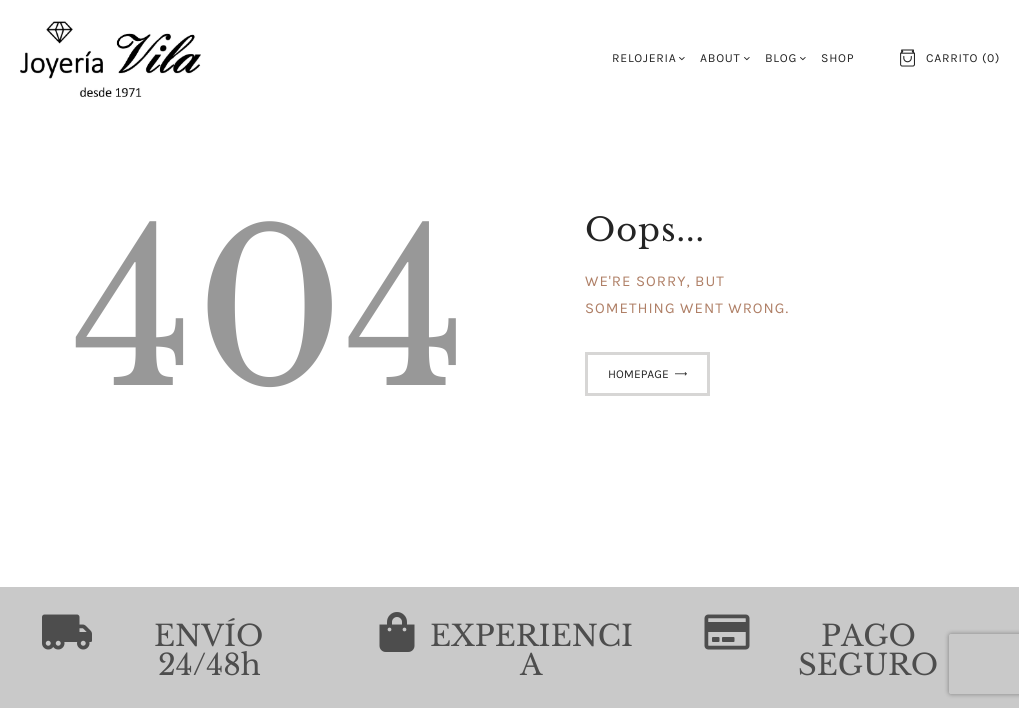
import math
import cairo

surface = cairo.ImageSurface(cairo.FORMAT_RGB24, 1019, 708)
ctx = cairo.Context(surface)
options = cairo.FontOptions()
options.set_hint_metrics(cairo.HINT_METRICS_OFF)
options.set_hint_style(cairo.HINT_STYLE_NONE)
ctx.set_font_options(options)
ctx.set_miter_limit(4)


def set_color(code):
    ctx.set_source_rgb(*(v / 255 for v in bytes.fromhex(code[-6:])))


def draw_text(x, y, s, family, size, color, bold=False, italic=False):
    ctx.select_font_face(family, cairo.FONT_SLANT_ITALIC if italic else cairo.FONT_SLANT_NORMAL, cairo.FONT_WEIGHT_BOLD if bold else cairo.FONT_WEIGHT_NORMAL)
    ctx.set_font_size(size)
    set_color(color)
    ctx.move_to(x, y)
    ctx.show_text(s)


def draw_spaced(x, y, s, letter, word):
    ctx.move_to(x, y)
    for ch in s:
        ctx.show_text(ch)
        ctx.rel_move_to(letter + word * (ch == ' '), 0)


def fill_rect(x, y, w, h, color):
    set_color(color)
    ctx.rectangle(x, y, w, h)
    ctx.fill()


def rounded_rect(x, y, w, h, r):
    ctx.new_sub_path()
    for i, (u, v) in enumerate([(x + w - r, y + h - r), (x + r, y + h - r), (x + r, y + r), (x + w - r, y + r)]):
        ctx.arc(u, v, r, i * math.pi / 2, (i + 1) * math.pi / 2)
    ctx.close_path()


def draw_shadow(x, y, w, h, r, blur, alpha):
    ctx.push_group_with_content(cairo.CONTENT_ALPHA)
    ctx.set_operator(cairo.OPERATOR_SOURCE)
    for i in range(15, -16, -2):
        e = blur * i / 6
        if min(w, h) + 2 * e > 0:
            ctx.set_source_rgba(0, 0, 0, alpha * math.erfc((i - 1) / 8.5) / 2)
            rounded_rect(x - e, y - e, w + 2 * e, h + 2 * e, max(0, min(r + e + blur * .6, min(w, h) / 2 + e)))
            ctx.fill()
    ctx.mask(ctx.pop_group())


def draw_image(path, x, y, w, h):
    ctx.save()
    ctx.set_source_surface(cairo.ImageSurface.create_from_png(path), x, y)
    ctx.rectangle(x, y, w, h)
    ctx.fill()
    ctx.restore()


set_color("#ffffff")
ctx.paint()
draw_image("assets/img1.png", 20, 21, 181, 76)
ctx.select_font_face("Karla")
ctx.set_font_size(12.25)
set_color("#242424")
draw_spaced(612, 62, "RELOJERIA", 0.75, 0)
draw_image("assets/img2.png", 679, 57, 6, 4)
draw_spaced(700, 62, "ABOUT", 0.75, 0)
draw_image("assets/img2.png", 744, 57, 6, 4)
draw_spaced(765, 62, "BLOG", 0.75, 0)
draw_image("assets/img2.png", 800, 57, 6, 4)
draw_spaced(821, 62, "SHOP", 0.75, 0)
draw_image("assets/img3.png", 900, 49, 15, 18)
draw_spaced(926, 62, "CARRITO (0)", 0.75, 0)
draw_text(72, 385, "404", "Libre Baskerville", 210, "#989898")
ctx.set_font_size(32)
set_color("#242424")
draw_spaced(585, 241, "Oops...", 1, 0)
ctx.select_font_face("Karla")
ctx.set_font_size(15)
set_color("#af7f66")
draw_spaced(585, 286, "WE'RE SORRY, BUT", 1, 0)
draw_spaced(585, 313, "SOMETHING WENT WRONG.", 1, 0)
ctx.rectangle(586.5, 353.5, 122, 41)
set_color("#d7d6d5")
ctx.set_line_width(3)
ctx.stroke()
draw_text(608, 378, "HOMEPAGE", "Karla", 12, "#242424")
draw_image("assets/img4.png", 675, 372, 12, 4)
fill_rect(0, 587, 1019, 121, "#c9c9c9")
draw_image("assets/img5.png", 42, 614, 50, 36)
draw_text(154, 646, "ENVÍO", "Libre Baskerville", 29, "#4d4d4d")
draw_text(158, 675, "24/48h", "Libre Baskerville", 29, "#4d4d4d")
draw_image("assets/img6.png", 379, 612, 36, 40)
draw_text(430, 646, "EXPERIENCI", "Libre Baskerville", 29, "#4d4d4d")
draw_text(520, 675, "A", "Libre Baskerville", 29, "#4d4d4d")
draw_image("assets/img7.png", 704, 614, 46, 36)
draw_text(821, 646, "PAGO", "Libre Baskerville", 29, "#4d4d4d")
draw_text(798, 675, "SEGURO", "Libre Baskerville", 29, "#4d4d4d")
ctx.save()
ctx.set_fill_rule(cairo.FILL_RULE_EVEN_ODD)
ctx.new_path()
ctx.move_to(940, 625)
ctx.line_to(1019, 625)
ctx.line_to(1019, 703)
ctx.line_to(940, 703)
ctx.close_path()
ctx.move_to(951, 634)
ctx.line_to(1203, 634)
ctx.curve_to(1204, 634, 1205, 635, 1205, 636)
ctx.line_to(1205, 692)
ctx.curve_to(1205, 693, 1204, 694, 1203, 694)
ctx.line_to(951, 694)
ctx.curve_to(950, 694, 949, 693, 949, 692)
ctx.line_to(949, 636)
ctx.curve_to(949, 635, 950, 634, 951, 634)
ctx.close_path()
ctx.clip()
set_color("#808080")
draw_shadow(949, 634, 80, 60, 2, 2.5, 1)
ctx.restore()
surface.write_to_png("output.png")
